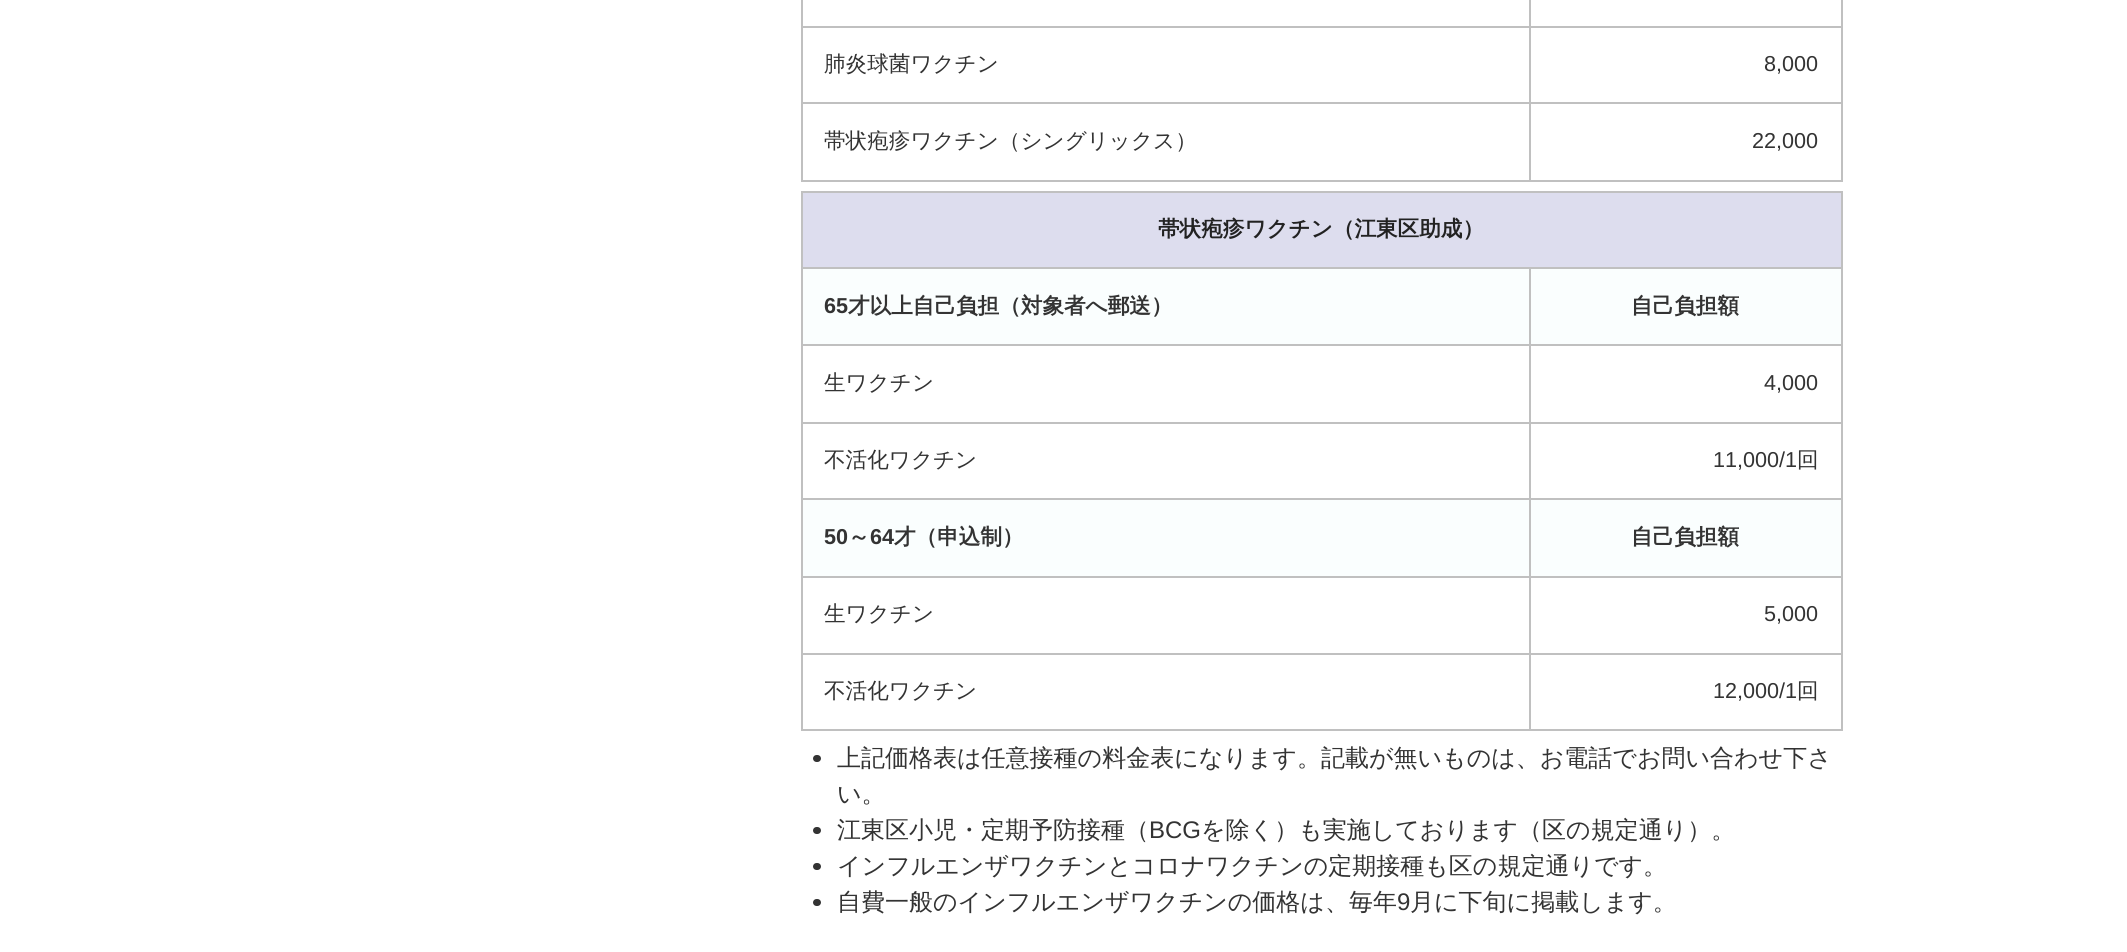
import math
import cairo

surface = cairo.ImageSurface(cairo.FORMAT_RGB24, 2127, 952)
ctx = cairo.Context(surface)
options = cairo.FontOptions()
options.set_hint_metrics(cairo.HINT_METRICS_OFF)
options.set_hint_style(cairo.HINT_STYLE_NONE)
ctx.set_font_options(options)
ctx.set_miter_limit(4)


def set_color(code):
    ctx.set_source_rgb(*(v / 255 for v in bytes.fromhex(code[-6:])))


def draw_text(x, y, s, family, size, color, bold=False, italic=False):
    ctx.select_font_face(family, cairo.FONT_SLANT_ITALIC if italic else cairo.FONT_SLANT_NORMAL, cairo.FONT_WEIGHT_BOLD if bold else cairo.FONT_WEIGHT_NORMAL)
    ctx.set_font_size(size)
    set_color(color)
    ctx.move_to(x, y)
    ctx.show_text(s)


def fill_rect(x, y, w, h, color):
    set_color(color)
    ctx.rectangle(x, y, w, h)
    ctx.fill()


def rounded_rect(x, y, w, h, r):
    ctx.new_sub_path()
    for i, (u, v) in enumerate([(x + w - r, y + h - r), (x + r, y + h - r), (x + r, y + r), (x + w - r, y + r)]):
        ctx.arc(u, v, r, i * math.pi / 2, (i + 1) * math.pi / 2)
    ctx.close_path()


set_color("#ffffff")
ctx.paint()
fill_rect(1529, 26, 313, 2, "#c0c0c0")
fill_rect(1529, 102, 313, 2, "#c0c0c0")
fill_rect(1841, 102, 2, 80, "#c0c0c0")
fill_rect(1529, 180, 313, 2, "#c0c0c0")
fill_rect(1529, 102, 2, 80, "#c0c0c0")
fill_rect(801, 102, 729, 2, "#c0c0c0")
fill_rect(1529, 26, 2, 78, "#c0c0c0")
fill_rect(801, 26, 729, 2, "#c0c0c0")
fill_rect(1529, 0, 2, 27, "#c0c0c0")
fill_rect(801, 180, 729, 2, "#c0c0c0")
fill_rect(801, 102, 2, 80, "#c0c0c0")
fill_rect(801, 0, 2, 104, "#c0c0c0")
draw_text(824, 71, "肺炎球菌ワクチン", "WenQuanYi Zen Hei Medium", 21.6, "#333333")
fill_rect(1841, 0, 2, 104, "#c0c0c0")
draw_text(1764, 71, "8,000", "Liberation Sans", 21.6, "#333333")
draw_text(824, 148, "帯状疱疹ワクチン（シングリックス）", "WenQuanYi Zen Hei Medium", 21.6, "#333333")
draw_text(1752, 148, "22,000", "Liberation Sans", 21.6, "#333333")
fill_rect(803, 193, 1038, 74, "#ddddee")
fill_rect(801, 191, 1041, 2, "#c0c0c0")
fill_rect(1529, 267, 313, 2, "#c0c0c0")
fill_rect(1529, 344, 313, 2, "#c0c0c0")
fill_rect(1529, 422, 313, 2, "#c0c0c0")
fill_rect(1529, 498, 313, 2, "#c0c0c0")
fill_rect(1529, 576, 313, 2, "#c0c0c0")
fill_rect(1529, 653, 313, 2, "#c0c0c0")
fill_rect(1841, 653, 2, 78, "#c0c0c0")
fill_rect(1841, 576, 2, 78, "#c0c0c0")
fill_rect(1841, 498, 2, 80, "#c0c0c0")
fill_rect(1841, 422, 2, 78, "#c0c0c0")
fill_rect(1841, 344, 2, 79, "#c0c0c0")
fill_rect(1841, 267, 2, 78, "#c0c0c0")
fill_rect(1841, 191, 2, 78, "#c0c0c0")
fill_rect(1529, 729, 313, 2, "#c0c0c0")
fill_rect(1529, 653, 2, 78, "#c0c0c0")
fill_rect(801, 653, 729, 2, "#c0c0c0")
fill_rect(1529, 576, 2, 78, "#c0c0c0")
fill_rect(801, 576, 729, 2, "#c0c0c0")
fill_rect(1529, 498, 2, 80, "#c0c0c0")
fill_rect(801, 498, 729, 2, "#c0c0c0")
fill_rect(1529, 422, 2, 78, "#c0c0c0")
fill_rect(801, 422, 729, 2, "#c0c0c0")
fill_rect(1529, 344, 2, 79, "#c0c0c0")
fill_rect(801, 344, 729, 2, "#c0c0c0")
fill_rect(1529, 267, 2, 78, "#c0c0c0")
fill_rect(801, 267, 729, 2, "#c0c0c0")
fill_rect(801, 729, 729, 2, "#c0c0c0")
fill_rect(801, 653, 2, 78, "#c0c0c0")
fill_rect(801, 576, 2, 78, "#c0c0c0")
fill_rect(801, 498, 2, 80, "#c0c0c0")
fill_rect(801, 422, 2, 78, "#c0c0c0")
fill_rect(801, 344, 2, 79, "#c0c0c0")
fill_rect(801, 267, 2, 78, "#c0c0c0")
fill_rect(801, 191, 2, 78, "#c0c0c0")
draw_text(1158, 236, "帯状疱疹ワクチン（江東区助成）", "WenQuanYi Zen Hei", 21.6, "#222222", bold=True)
fill_rect(803, 269, 726, 75, "#fafefe")
draw_text(824, 313, "65", "Liberation Sans", 21.6, "#333333", bold=True)
draw_text(848, 313, "才以上自己負担（対象者へ郵送）", "WenQuanYi Zen Hei", 21.6, "#333333", bold=True)
fill_rect(1531, 269, 310, 75, "#fafefe")
draw_text(1631, 313, "自己負担額", "WenQuanYi Zen Hei", 21.6, "#333333", bold=True)
draw_text(824, 390, "生ワクチン", "WenQuanYi Zen Hei Medium", 21.6, "#333333")
draw_text(1764, 390, "4,000", "Liberation Sans", 21.6, "#333333")
draw_text(824, 467, "不活化ワクチン", "WenQuanYi Zen Hei Medium", 21.6, "#333333")
draw_text(1713, 467, "11,000/1", "Liberation Sans", 21.6, "#333333")
draw_text(1797, 467, "回", "WenQuanYi Zen Hei Medium", 21.6, "#333333")
fill_rect(803, 500, 726, 76, "#fafefe")
draw_text(824, 544, "50", "Liberation Sans", 21.6, "#333333", bold=True)
draw_text(848, 544, "～", "WenQuanYi Zen Hei", 21.6, "#333333", bold=True)
draw_text(870, 544, "64", "Liberation Sans", 21.6, "#333333", bold=True)
draw_text(894, 544, "才（申込制）", "WenQuanYi Zen Hei", 21.6, "#333333", bold=True)
fill_rect(1531, 500, 310, 76, "#fafefe")
draw_text(1631, 544, "自己負担額", "WenQuanYi Zen Hei", 21.6, "#333333", bold=True)
draw_text(824, 621, "生ワクチン", "WenQuanYi Zen Hei Medium", 21.6, "#333333")
draw_text(1764, 621, "5,000", "Liberation Sans", 21.6, "#333333")
draw_text(824, 698, "不活化ワクチン", "WenQuanYi Zen Hei Medium", 21.6, "#333333")
draw_text(1713, 698, "12,000/1", "Liberation Sans", 21.6, "#333333")
draw_text(1797, 698, "回", "WenQuanYi Zen Hei Medium", 21.6, "#333333")
rounded_rect(813, 755, 8, 7, 3.5)
ctx.fill()
draw_text(837, 766, "上記価格表は任意接種の料金表になります。記載が無いものは、お電話でお問い合わせ下さ", "WenQuanYi Zen Hei Medium", 24, "#333333")
draw_text(837, 802, "い。", "WenQuanYi Zen Hei Medium", 24, "#333333")
rounded_rect(813, 827, 8, 7, 3.5)
ctx.fill()
draw_text(837, 838, "江東区小児・定期予防接種（", "WenQuanYi Zen Hei Medium", 24, "#333333")
draw_text(1149, 838, "BCG", "Liberation Sans", 24, "#333333")
draw_text(1201, 838, "を除く）も実施しております（区の規定通り）。", "WenQuanYi Zen Hei Medium", 24, "#333333")
rounded_rect(813, 863, 8, 7, 3.5)
ctx.fill()
draw_text(837, 874, "インフルエンザワクチンとコロナワクチンの定期接種も区の規定通りです。", "WenQuanYi Zen Hei Medium", 24, "#333333")
rounded_rect(813, 899, 8, 7, 3.5)
ctx.fill()
draw_text(837, 910, "自費一般のインフルエンザワクチンの価格は、毎年", "WenQuanYi Zen Hei Medium", 24, "#333333")
draw_text(1397, 910, "9", "Liberation Sans", 24, "#333333")
draw_text(1410, 910, "月に下旬に掲載します。", "WenQuanYi Zen Hei Medium", 24, "#333333")
surface.write_to_png("output.png")
